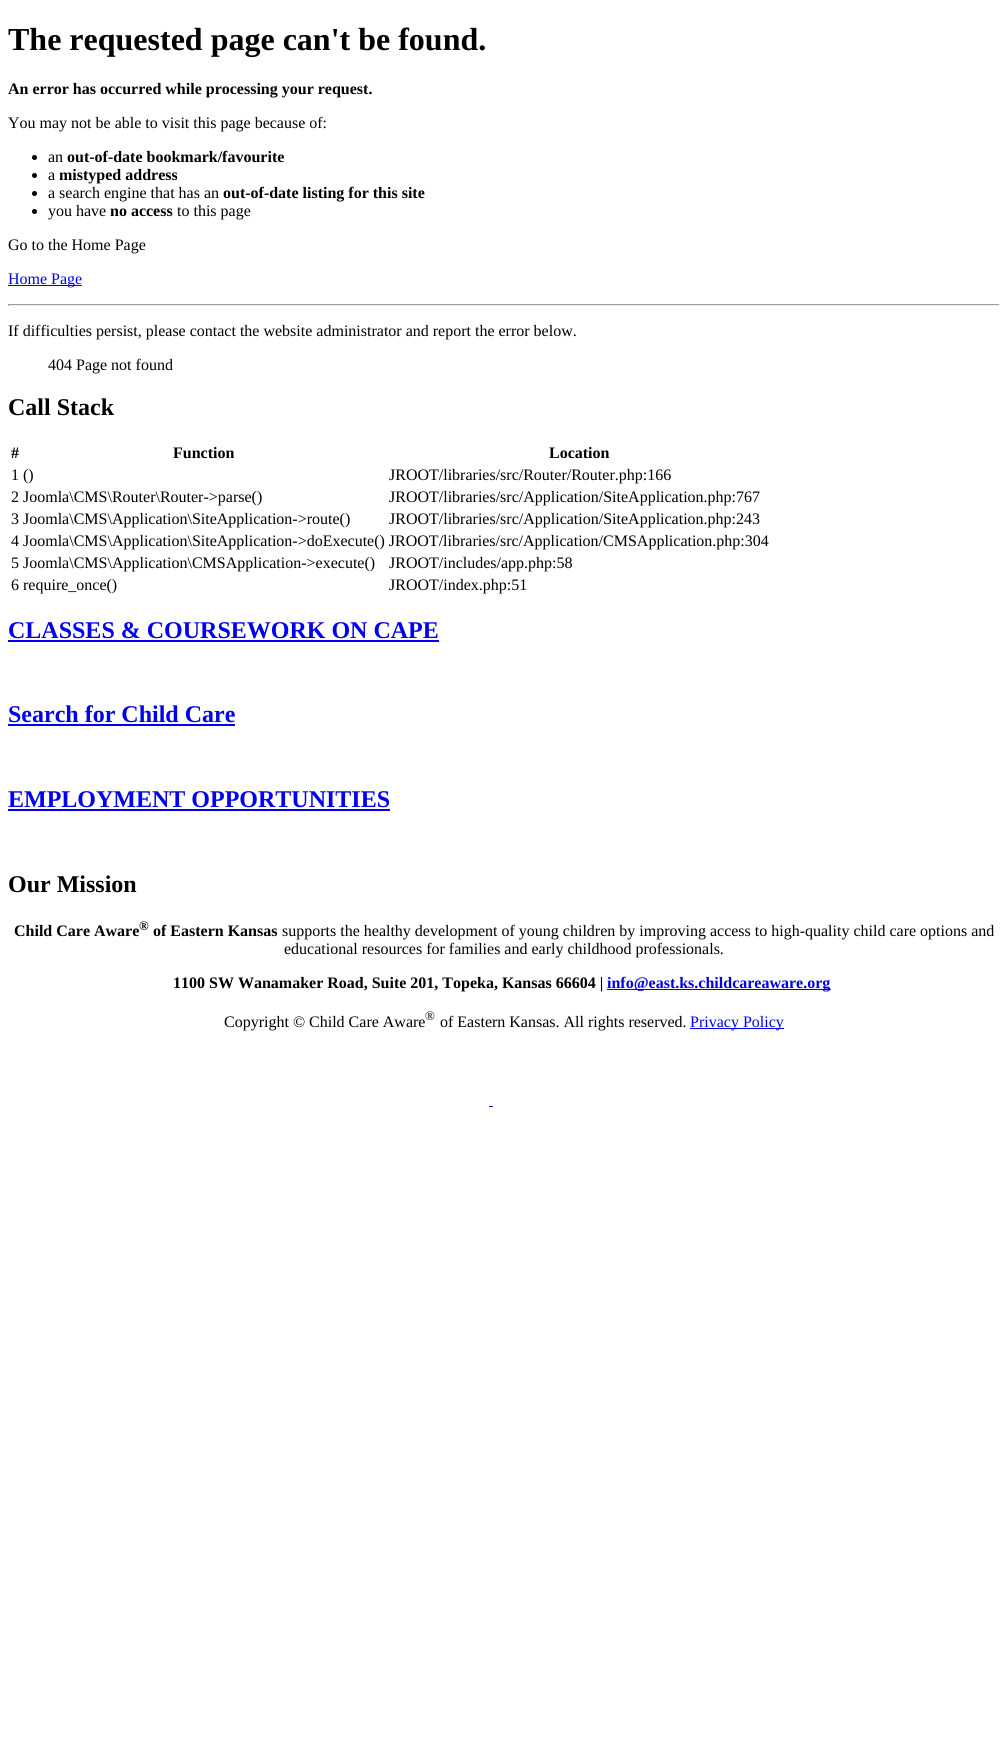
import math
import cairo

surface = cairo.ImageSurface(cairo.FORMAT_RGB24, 1008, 1739)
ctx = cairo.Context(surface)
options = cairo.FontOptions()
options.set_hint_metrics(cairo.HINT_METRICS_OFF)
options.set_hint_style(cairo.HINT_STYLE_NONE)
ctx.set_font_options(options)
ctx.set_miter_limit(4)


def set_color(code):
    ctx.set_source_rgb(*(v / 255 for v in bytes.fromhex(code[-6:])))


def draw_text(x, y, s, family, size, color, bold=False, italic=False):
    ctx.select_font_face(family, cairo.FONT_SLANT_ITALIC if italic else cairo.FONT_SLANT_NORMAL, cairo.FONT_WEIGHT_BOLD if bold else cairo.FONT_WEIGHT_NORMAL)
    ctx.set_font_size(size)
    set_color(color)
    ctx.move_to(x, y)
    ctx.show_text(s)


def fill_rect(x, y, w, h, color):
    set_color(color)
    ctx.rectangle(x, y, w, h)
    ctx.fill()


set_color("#ffffff")
ctx.paint()
draw_text(8, 50, "The requested page can't be found.", "Liberation Serif", 32, "#000000", bold=True)
draw_text(8, 94, "An error has occurred while processing your request.", "Liberation Serif", 16, "#000000", bold=True)
draw_text(8, 128, "You may not be able to visit this page because of:", "Liberation Serif", 16, "#000000")
ctx.new_path()
ctx.arc(34.5, 157.5, 2.5, 0, 2 * math.pi)
ctx.fill()
draw_text(48, 162, "an", "Liberation Serif", 16, "#000000")
draw_text(67, 162, "out-of-date bookmark/favourite", "Liberation Serif", 16, "#000000", bold=True)
ctx.new_path()
ctx.arc(34.5, 175.5, 2.5, 0, 2 * math.pi)
ctx.fill()
draw_text(48, 180, "a", "Liberation Serif", 16, "#000000")
draw_text(59, 180, "mistyped address", "Liberation Serif", 16, "#000000", bold=True)
ctx.new_path()
ctx.arc(34.5, 193.5, 2.5, 0, 2 * math.pi)
ctx.fill()
draw_text(48, 198, "a search engine that has an", "Liberation Serif", 16, "#000000")
draw_text(223, 198, "out-of-date listing for this site", "Liberation Serif", 16, "#000000", bold=True)
ctx.new_path()
ctx.arc(34.5, 211.5, 2.5, 0, 2 * math.pi)
ctx.fill()
draw_text(48, 216, "you have", "Liberation Serif", 16, "#000000")
draw_text(110, 216, "no access", "Liberation Serif", 16, "#000000", bold=True)
draw_text(177, 216, "to this page", "Liberation Serif", 16, "#000000")
draw_text(8, 250, "Go to the Home Page", "Liberation Serif", 16, "#000000")
fill_rect(8, 285, 74, 1, "#0000ee")
draw_text(8, 284, "Home Page", "Liberation Serif", 16, "#0000ee")
fill_rect(8, 304, 992, 1, "#9f9f9f")
fill_rect(999, 304, 1, 2, "#eeeeee")
fill_rect(8, 305, 992, 1, "#eeeeee")
fill_rect(8, 304, 1, 2, "#9f9f9f")
draw_text(8, 336, "If difficulties persist, please contact the website administrator and report the error below.", "Liberation Serif", 16, "#000000")
draw_text(48, 370, "404 Page not found", "Liberation Serif", 16, "#000000")
draw_text(8, 415, "Call Stack", "Liberation Serif", 24, "#000000", bold=True)
draw_text(11, 458, "#", "Liberation Serif", 16, "#000000", bold=True)
draw_text(173, 458, "Function", "Liberation Serif", 16, "#000000", bold=True)
draw_text(549, 458, "Location", "Liberation Serif", 16, "#000000", bold=True)
draw_text(11, 480, "1 ()", "Liberation Serif", 16, "#000000")
draw_text(389, 480, "JROOT/libraries/src/Router/Router.php:166", "Liberation Serif", 16, "#000000")
draw_text(11, 502, "2 Joomla\\CMS\\Router\\Router->parse()", "Liberation Serif", 16, "#000000")
draw_text(389, 502, "JROOT/libraries/src/Application/SiteApplication.php:767", "Liberation Serif", 16, "#000000")
draw_text(11, 524, "3 Joomla\\CMS\\Application\\SiteApplication->route()", "Liberation Serif", 16, "#000000")
draw_text(389, 524, "JROOT/libraries/src/Application/SiteApplication.php:243", "Liberation Serif", 16, "#000000")
draw_text(11, 546, "4 Joomla\\CMS\\Application\\SiteApplication->doExecute() JROOT/libraries/src/Application/CMSApplication.php:304", "Liberation Serif", 16, "#000000")
draw_text(11, 568, "5 Joomla\\CMS\\Application\\CMSApplication->execute()", "Liberation Serif", 16, "#000000")
draw_text(389, 568, "JROOT/includes/app.php:58", "Liberation Serif", 16, "#000000")
draw_text(11, 590, "6 require_once()", "Liberation Serif", 16, "#000000")
draw_text(389, 590, "JROOT/index.php:51", "Liberation Serif", 16, "#000000")
draw_text(8, 638, "CLASSES & COURSEWORK ON CAPE", "Liberation Serif", 24, "#0000ee", bold=True)
fill_rect(8, 640, 431, 2, "#0000ee")
draw_text(8, 722, "Search for Child Care", "Liberation Serif", 24, "#0000ee", bold=True)
fill_rect(8, 724, 227, 2, "#0000ee")
draw_text(8, 807, "EMPLOYMENT OPPORTUNITIES", "Liberation Serif", 24, "#0000ee", bold=True)
fill_rect(8, 809, 382, 2, "#0000ee")
draw_text(8, 892, "Our Mission", "Liberation Serif", 24, "#000000", bold=True)
draw_text(14, 936, "Child Care Aware", "Liberation Serif", 16, "#000000", bold=True)
draw_text(139, 930, "®", "Liberation Serif", 13, "#000000", bold=True)
draw_text(153, 936, "of Eastern Kansas", "Liberation Serif", 16, "#000000", bold=True)
draw_text(282, 936, "supports the healthy development of young children by improving access to high-quality child care options and", "Liberation Serif", 16, "#000000")
draw_text(284, 954, "educational resources for families and early childhood professionals.", "Liberation Serif", 16, "#000000")
draw_text(173, 988, "1100 SW Wanamaker Road, Suite 201, Topeka, Kansas 66604 |", "Liberation Serif", 16, "#000000", bold=True)
fill_rect(607, 989, 224, 1, "#0000ee")
draw_text(607, 988, "info@east.ks.childcareaware.org", "Liberation Serif", 16, "#0000ee", bold=True)
draw_text(224, 1027, "Copyright © Child Care Aware", "Liberation Serif", 16, "#000000")
draw_text(425, 1020, "®", "Liberation Serif", 13, "#000000")
draw_text(440, 1027, "of Eastern Kansas. All rights reserved.", "Liberation Serif", 16, "#000000")
fill_rect(690, 1028, 94, 1, "#0000ee")
draw_text(690, 1027, "Privacy Policy", "Liberation Serif", 16, "#0000ee")
fill_rect(489, 1106, 4, 1, "#0000ee")
surface.write_to_png("output.png")
